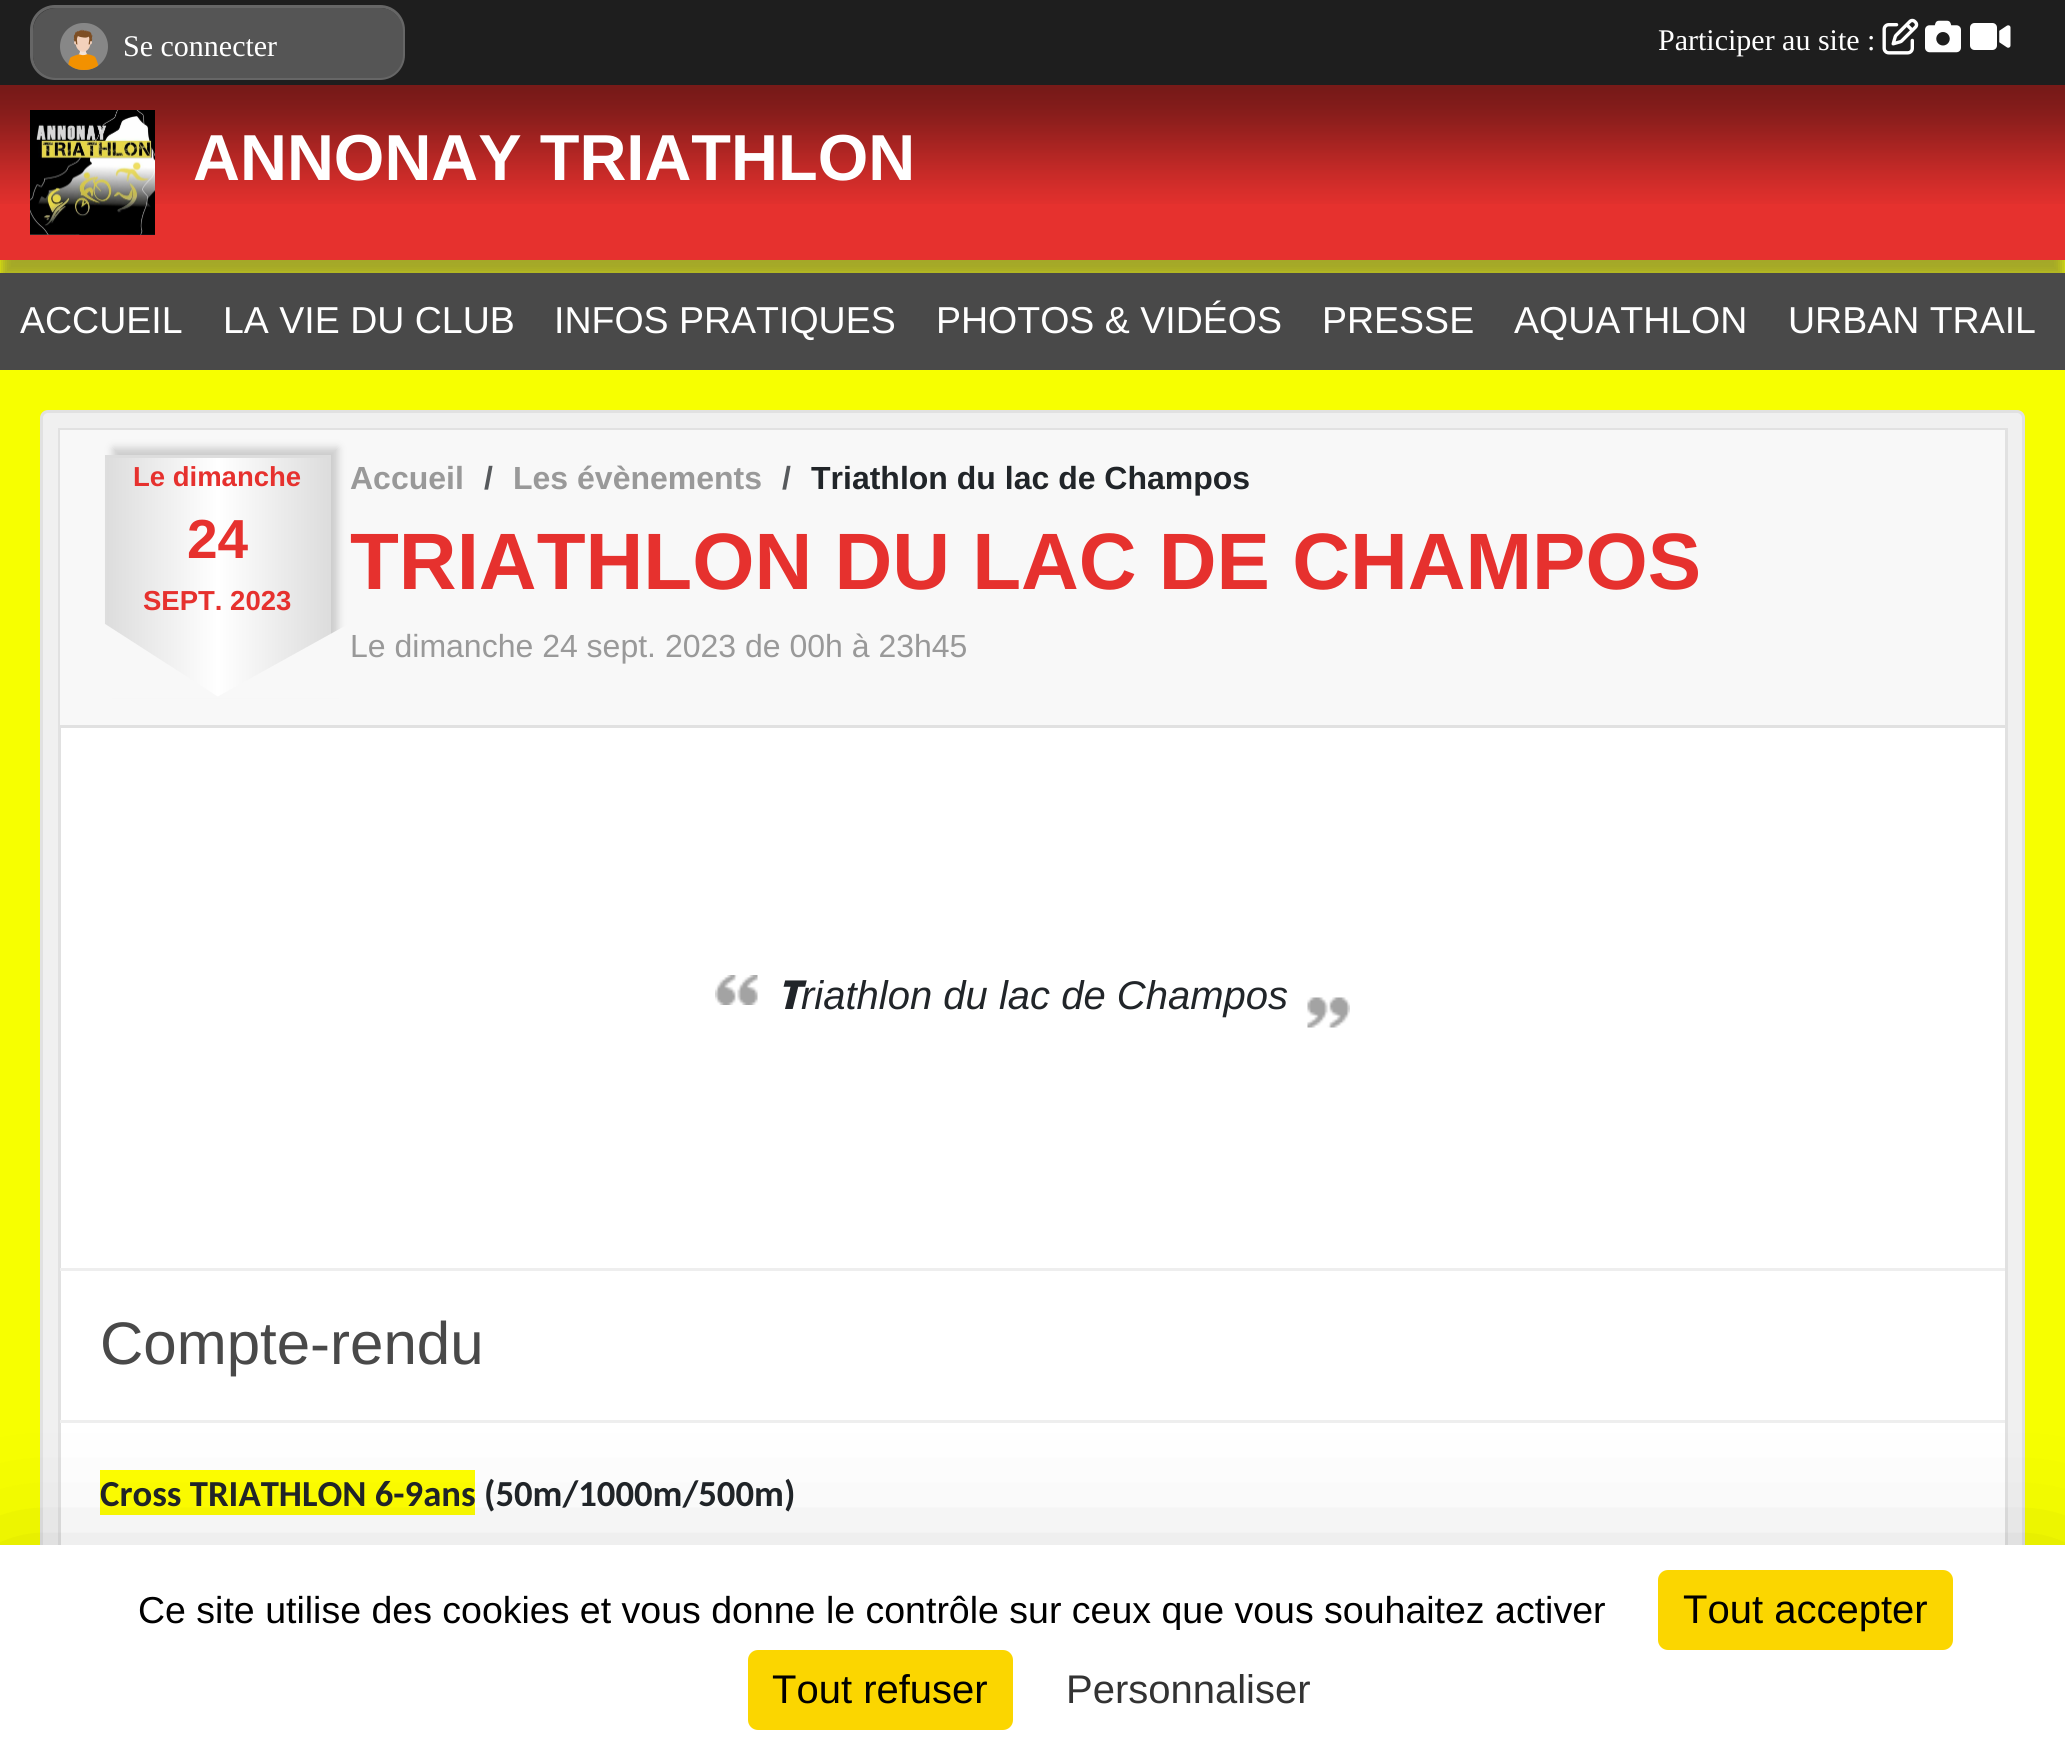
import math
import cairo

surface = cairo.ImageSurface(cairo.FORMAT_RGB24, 2065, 1755)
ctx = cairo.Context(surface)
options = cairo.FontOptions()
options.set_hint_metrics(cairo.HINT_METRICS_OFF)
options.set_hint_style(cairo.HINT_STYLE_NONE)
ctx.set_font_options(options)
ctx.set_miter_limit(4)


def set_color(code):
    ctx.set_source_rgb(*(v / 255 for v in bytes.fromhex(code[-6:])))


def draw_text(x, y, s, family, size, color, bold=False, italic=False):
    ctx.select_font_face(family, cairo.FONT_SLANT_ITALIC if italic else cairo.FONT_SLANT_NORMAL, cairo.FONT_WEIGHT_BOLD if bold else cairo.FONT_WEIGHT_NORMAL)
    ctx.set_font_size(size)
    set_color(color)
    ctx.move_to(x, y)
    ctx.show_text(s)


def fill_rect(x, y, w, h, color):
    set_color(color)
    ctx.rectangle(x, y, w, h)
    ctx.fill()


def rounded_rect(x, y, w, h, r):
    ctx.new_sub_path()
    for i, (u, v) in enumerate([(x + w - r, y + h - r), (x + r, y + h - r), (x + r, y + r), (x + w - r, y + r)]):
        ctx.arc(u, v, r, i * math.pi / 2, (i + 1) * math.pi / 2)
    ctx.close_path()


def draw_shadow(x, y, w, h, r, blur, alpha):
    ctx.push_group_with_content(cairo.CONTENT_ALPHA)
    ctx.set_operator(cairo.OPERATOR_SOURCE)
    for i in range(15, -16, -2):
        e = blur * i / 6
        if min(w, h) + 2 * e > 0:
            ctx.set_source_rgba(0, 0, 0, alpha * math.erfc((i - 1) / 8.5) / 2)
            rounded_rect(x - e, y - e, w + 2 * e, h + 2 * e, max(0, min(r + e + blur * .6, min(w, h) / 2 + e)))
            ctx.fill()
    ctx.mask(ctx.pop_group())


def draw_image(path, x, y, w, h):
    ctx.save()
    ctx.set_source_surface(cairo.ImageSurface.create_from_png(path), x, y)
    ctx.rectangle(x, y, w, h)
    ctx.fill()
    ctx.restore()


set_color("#f7ff00")
ctx.paint()
set_color("#505050")
draw_shadow(0, 103, 2065, 175, 0, 6, 0.5)
fill_rect(0, 0, 2065, 85, "#1e1e1e")
set_color("#333333")
rounded_rect(31.5, 6.5, 372, 72, 23.5)
ctx.fill_preserve()
set_color("#666666")
ctx.set_line_width(3)
ctx.stroke()
set_color("#555555")
rounded_rect(33, 8, 370, 70, 23)
ctx.fill()
draw_image("assets/img1.png", 60, 23, 48, 47)
draw_text(123, 56, "Se connecter", "Liberation Serif", 30, "#ffffff")
draw_text(1658, 50, "Participer au site :", "Liberation Serif", 30, "#ffffff")
draw_image("assets/img2.png", 1882, 18, 37, 37)
draw_image("assets/img3.png", 1925, 20, 36, 33)
draw_image("assets/img4.png", 1970, 23, 41, 27)
fill_rect(0, 85, 2065, 175, "#e6312e")
draw_image("assets/img5.png", 0, 85, 2065, 119)
draw_image("assets/img6.png", 30, 110, 125, 125)
draw_text(193, 180, "ANNONAY TRIATHLON", "Liberation Sans", 65, "#ffffff", bold=True)
fill_rect(0, 273, 2065, 97, "#494949")
draw_text(20, 333, "ACCUEIL", "Liberation Sans", 37.5, "#ffffff")
draw_text(223, 333, "LA VIE DU CLUB", "Liberation Sans", 37.5, "#ffffff")
draw_text(554, 333, "INFOS PRATIQUES", "Liberation Sans", 37.5, "#ffffff")
draw_text(936, 333, "PHOTOS & VIDÉOS", "Liberation Sans", 37.5, "#ffffff")
draw_text(1322, 333, "PRESSE", "Liberation Sans", 37.5, "#ffffff")
draw_text(1514, 333, "AQUATHLON", "Liberation Sans", 37.5, "#ffffff")
draw_text(1788, 333, "URBAN TRAIL", "Liberation Sans", 37.5, "#ffffff")
set_color("#f0f0f0")
rounded_rect(41.5, 411.5, 1982, 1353, 6.5)
ctx.fill_preserve()
set_color("#e1e1e1")
ctx.stroke()
fill_rect(61, 728, 1944, 817, "#ffffff")
ctx.rectangle(59.5, 429.5, 1947, 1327)
set_color("#e1e1e1")
ctx.stroke()
fill_rect(60, 430, 1945, 295, "#f8f8f8")
fill_rect(60, 725, 1945, 3, "#e1e1e1")
set_color("#cccccc")
draw_shadow(113, 448, 225, 242, 0, 4, 1)
gradient = cairo.LinearGradient(-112, 578, 108, 578)
gradient.add_color_stop_rgba(0, 0.867, 0.867, 0.867, 1)
gradient.add_color_stop_rgba(0.5, 1, 1, 1, 1)
gradient.add_color_stop_rgba(1, 0.867, 0.867, 0.867, 1)
ctx.set_source(gradient)
ctx.rectangle(105, 455, 3, 171)
ctx.fill()
gradient = cairo.LinearGradient(108, 578, 328, 578)
gradient.add_color_stop_rgba(0, 0.867, 0.867, 0.867, 1)
gradient.add_color_stop_rgba(0.5, 1, 1, 1, 1)
gradient.add_color_stop_rgba(1, 0.867, 0.867, 0.867, 1)
ctx.set_source(gradient)
ctx.rectangle(108, 458, 220, 239)
ctx.fill()
fill_rect(105, 455, 225, 3, "#dddddd")
fill_rect(328, 455, 3, 181, "#dddddd")
draw_text(133, 486, "Le dimanche", "Liberation Sans", 27.5, "#e6312e", bold=True)
draw_text(187, 558, "24", "Liberation Sans", 55, "#e6312e", bold=True)
draw_text(143, 610, "SEPT. 2023", "Liberation Sans", 27.5, "#e6312e", bold=True)
set_color("#f8f8f8")
ctx.new_path()
ctx.move_to(102, 698)
ctx.line_to(102, 622)
ctx.line_to(220, 698)
ctx.close_path()
ctx.fill()
ctx.new_path()
ctx.move_to(352, 622)
ctx.line_to(352, 698)
ctx.line_to(215, 698)
ctx.close_path()
ctx.fill()
draw_text(350, 489, "Accueil", "Liberation Sans", 32, "#999999", bold=True)
draw_text(484, 489, "/", "Liberation Sans", 32, "#575a5d", bold=True)
draw_text(513, 489, "Les évènements", "Liberation Sans", 32, "#999999", bold=True)
draw_text(782, 489, "/", "Liberation Sans", 32, "#575a5d", bold=True)
draw_text(811, 489, "Triathlon du lac de Champos", "Liberation Sans", 32, "#212529", bold=True)
draw_text(350, 589, "TRIATHLON DU LAC DE CHAMPOS", "Liberation Sans", 80, "#e6312e", bold=True)
draw_text(350, 657, "Le dimanche 24 sept. 2023 de 00h à 23h45", "Liberation Sans", 32, "#999999")
draw_image("assets/img7.png", 715, 975, 635, 53)
draw_text(777, 1009, "T", "Noto Sans Black", 40, "#212529", italic=True)
draw_text(801, 1009, "riathlon du lac de Champos", "Liberation Sans", 40, "#212529", italic=True)
fill_rect(60, 1268, 1945, 3, "#eeeeee")
fill_rect(60, 1420, 1945, 3, "#eeeeee")
draw_text(100, 1364, "Compte-rendu", "Liberation Sans", 60, "#494949")
fill_rect(100, 1470, 375, 45, "#ffff00")
draw_text(100, 1506, "Cross TRIATHLON 6-9ans (50m/1000m/500m)", "Carlito", 36.7, "#212529", bold=True)
set_color("#000000")
draw_shadow(0, 1595, 2065, 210, 0, 75, 0.25)
fill_rect(0, 1545, 2065, 210, "#ffffff")
ctx.save()
ctx.rectangle(113, 1588, 1517, 42)
ctx.clip()
draw_text(138, 1623, "Ce site utilise des cookies et vous donne le contrôle sur ceux que vous souhaitez activer", "Liberation Sans", 37.5, "#000000")
ctx.restore()
set_color("#fbd600")
rounded_rect(1658, 1570, 295, 80, 10)
ctx.fill()
draw_text(1683, 1623, "Tout accepter", "Liberation Sans", 40, "#000000")
set_color("#fbd600")
rounded_rect(748, 1650, 265, 80, 10)
ctx.fill()
draw_text(772, 1703, "Tout refuser", "Liberation Sans", 40, "#000000")
draw_text(1066, 1703, "Personnaliser", "Liberation Sans", 40, "#333333")
surface.write_to_png("output.png")
